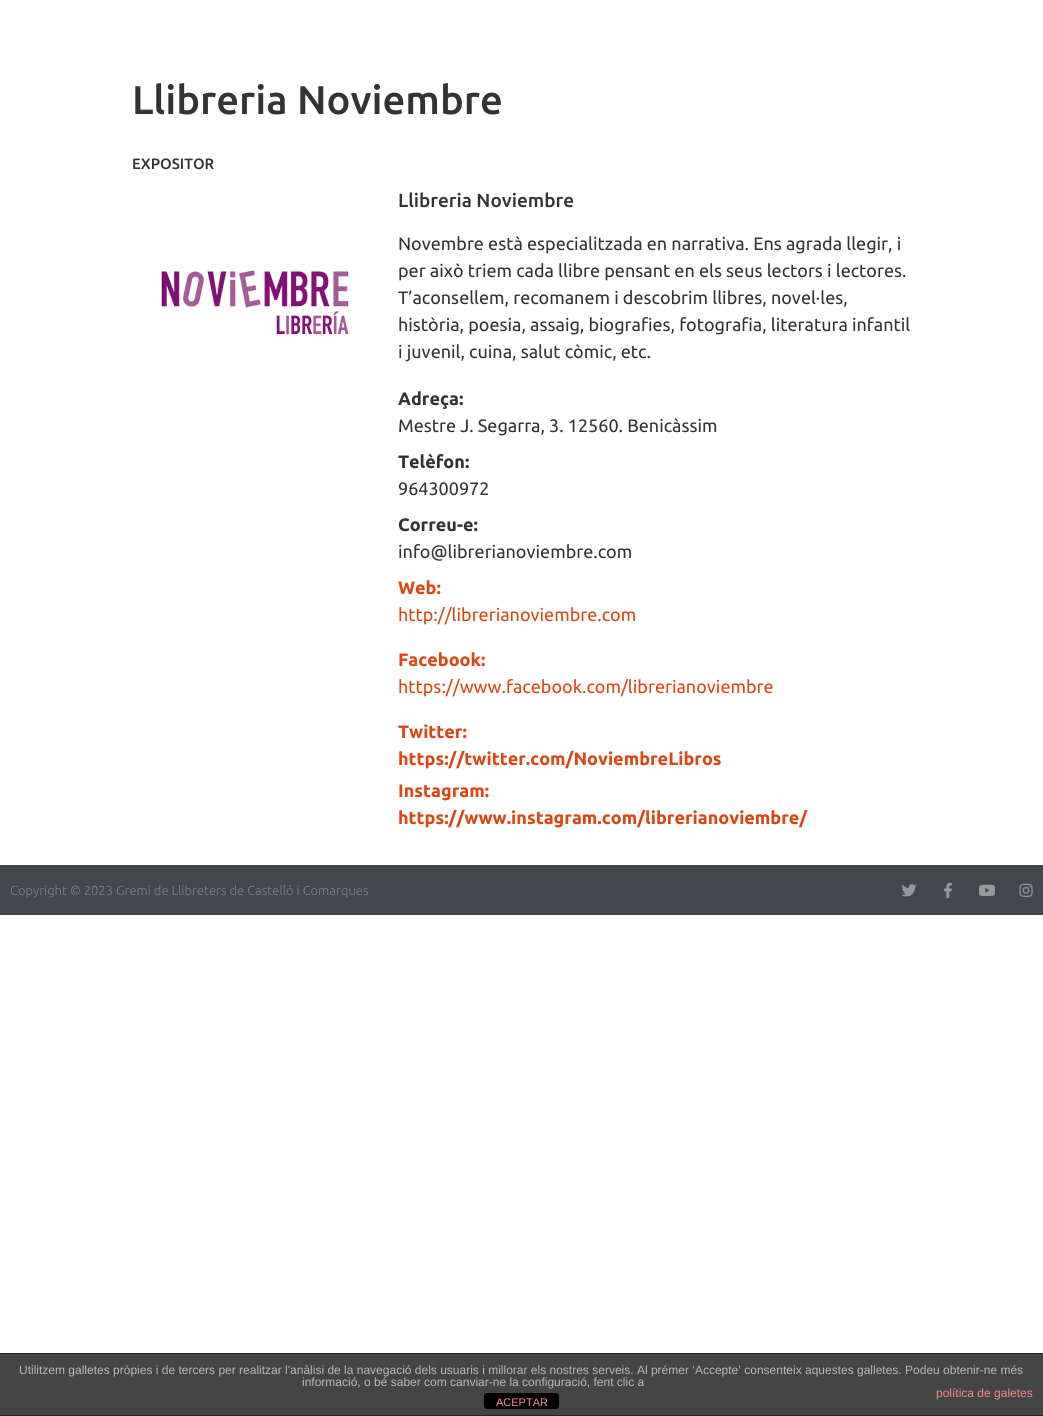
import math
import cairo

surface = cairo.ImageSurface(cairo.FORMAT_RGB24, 1043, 1416)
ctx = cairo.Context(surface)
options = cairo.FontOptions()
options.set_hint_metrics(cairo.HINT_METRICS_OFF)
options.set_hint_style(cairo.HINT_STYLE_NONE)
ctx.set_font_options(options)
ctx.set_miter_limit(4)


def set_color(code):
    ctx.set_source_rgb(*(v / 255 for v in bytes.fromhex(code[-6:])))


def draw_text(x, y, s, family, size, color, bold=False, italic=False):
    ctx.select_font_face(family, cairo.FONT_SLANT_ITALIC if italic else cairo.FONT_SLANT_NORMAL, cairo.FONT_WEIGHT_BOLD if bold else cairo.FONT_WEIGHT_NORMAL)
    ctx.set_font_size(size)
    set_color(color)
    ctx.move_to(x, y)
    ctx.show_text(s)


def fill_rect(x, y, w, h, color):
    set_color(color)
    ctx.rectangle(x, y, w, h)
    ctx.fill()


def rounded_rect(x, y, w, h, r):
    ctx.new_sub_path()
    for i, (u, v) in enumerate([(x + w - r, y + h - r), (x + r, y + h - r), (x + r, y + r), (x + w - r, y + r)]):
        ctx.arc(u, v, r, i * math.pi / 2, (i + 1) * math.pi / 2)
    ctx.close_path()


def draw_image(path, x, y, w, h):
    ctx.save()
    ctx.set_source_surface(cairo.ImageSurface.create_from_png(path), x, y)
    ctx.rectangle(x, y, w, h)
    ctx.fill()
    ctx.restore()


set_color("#ffffff")
ctx.paint()
draw_text(132, 114, "Llibreria Noviembre", "Ubuntu Medium", 40, "#333333")
draw_text(132, 169, "EXPOSITOR", "Ubuntu Medium", 15, "#333333")
draw_image("assets/img1.png", 161, 270, 192, 65)
draw_text(398, 207, "Llibreria Noviembre", "Ubuntu Medium", 19, "#333333")
draw_text(398, 250, "Novembre està especialitzada en narrativa. Ens agrada llegir, i", "Ubuntu", 18, "#333333")
draw_text(398, 277, "per això triem cada llibre pensant en els seus lectors i lectores.", "Ubuntu", 18, "#333333")
draw_text(398, 304, "T’aconsellem, recomanem i descobrim llibres, novel·les,", "Ubuntu", 18, "#333333")
draw_text(398, 331, "història, poesia, assaig, biografies, fotografia, literatura infantil", "Ubuntu", 18, "#333333")
draw_text(398, 358, "i juvenil, cuina, salut còmic, etc.", "Ubuntu", 18, "#333333")
draw_text(398, 405, "Adreça:", "Ubuntu", 18, "#333333", bold=True)
draw_text(398, 432, "Mestre J. Segarra, 3. 12560. Benicàssim", "Ubuntu", 18, "#333333")
draw_text(398, 468, "Telèfon:", "Ubuntu", 18, "#333333", bold=True)
draw_text(398, 495, "964300972", "Ubuntu", 18, "#333333")
draw_text(398, 531, "Correu-e:", "Ubuntu", 18, "#333333", bold=True)
draw_text(398, 558, "info@librerianoviembre.com", "Ubuntu", 18, "#333333")
draw_text(398, 594, "Web:", "Ubuntu", 18, "#db4613", bold=True)
draw_text(398, 621, "http://librerianoviembre.com", "Ubuntu", 18, "#db4613")
draw_text(398, 666, "Facebook:", "Ubuntu", 18, "#db4613", bold=True)
draw_text(398, 693, "https://www.facebook.com/librerianoviembre", "Ubuntu", 18, "#db4613")
draw_text(398, 738, "Twitter:", "Ubuntu", 18, "#db4613", bold=True)
draw_text(398, 765, "https://twitter.com/NoviembreLibros", "Ubuntu", 18, "#db4613", bold=True)
draw_text(398, 797, "Instagram:", "Ubuntu", 18, "#db4613", bold=True)
draw_text(398, 824, "https://www.instagram.com/librerianoviembre/", "Ubuntu", 18, "#db4613", bold=True)
fill_rect(0, 865, 1043, 50, "#43464c")
draw_text(10, 895, "Copyright © 2023 Gremi de Llibreters de Castelló i Comarques", "Ubuntu Light", 13, "#7f8185")
draw_image("assets/img2.png", 901, 884, 16, 13)
draw_image("assets/img3.png", 944, 882, 8, 16)
draw_image("assets/img4.png", 979, 884, 16, 12)
draw_image("assets/img5.png", 1019, 883, 14, 14)
fill_rect(0, 1354, 1043, 61, "#444444")
fill_rect(0, 1353, 1043, 1, "#222222")
fill_rect(0, 1415, 1043, 1, "#222222")
draw_text(19, 1374, "Utilitzem galletes pròpies i de tercers per realitzar l'anàlisi de la navegació dels usuaris i millorar els nostres serveis. Al prémer ‘Accepte’ consenteix aquestes galletes. Podeu obtenir-ne més", "Liberation Sans", 12, "#bbbbbb")
draw_text(302, 1386, "informació, o bé saber com canviar-ne la configuració, fent clic a", "Liberation Sans", 12, "#bbbbbb")
draw_text(936, 1397, "política de galetes", "Liberation Sans", 12, "#ff8888")
set_color("#000000")
rounded_rect(484, 1393, 75, 16, 3)
ctx.fill()
draw_text(496, 1406, "ACEPTAR", "Liberation Sans", 11, "#ff8888")
surface.write_to_png("output.png")
